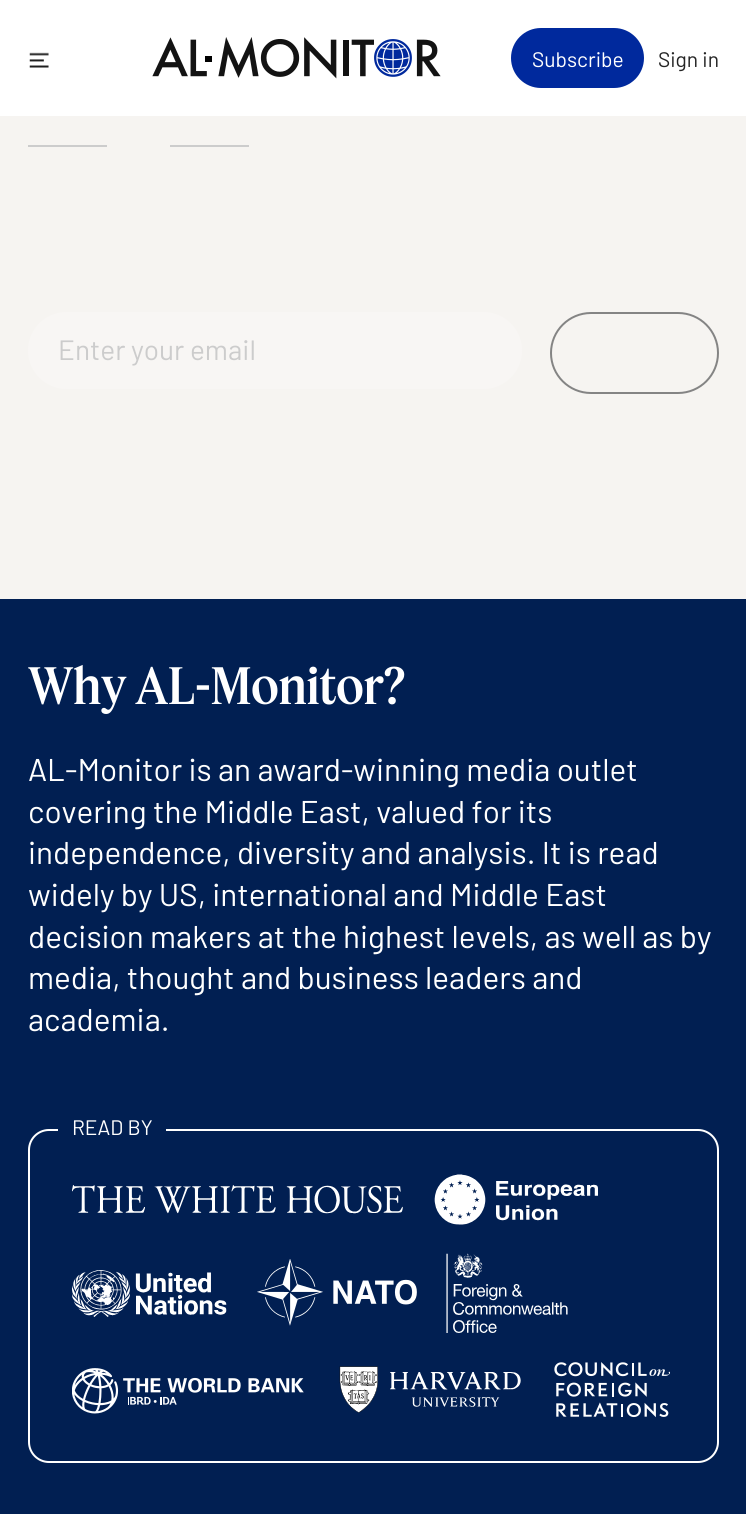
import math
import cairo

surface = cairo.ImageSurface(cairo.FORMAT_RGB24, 746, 1514)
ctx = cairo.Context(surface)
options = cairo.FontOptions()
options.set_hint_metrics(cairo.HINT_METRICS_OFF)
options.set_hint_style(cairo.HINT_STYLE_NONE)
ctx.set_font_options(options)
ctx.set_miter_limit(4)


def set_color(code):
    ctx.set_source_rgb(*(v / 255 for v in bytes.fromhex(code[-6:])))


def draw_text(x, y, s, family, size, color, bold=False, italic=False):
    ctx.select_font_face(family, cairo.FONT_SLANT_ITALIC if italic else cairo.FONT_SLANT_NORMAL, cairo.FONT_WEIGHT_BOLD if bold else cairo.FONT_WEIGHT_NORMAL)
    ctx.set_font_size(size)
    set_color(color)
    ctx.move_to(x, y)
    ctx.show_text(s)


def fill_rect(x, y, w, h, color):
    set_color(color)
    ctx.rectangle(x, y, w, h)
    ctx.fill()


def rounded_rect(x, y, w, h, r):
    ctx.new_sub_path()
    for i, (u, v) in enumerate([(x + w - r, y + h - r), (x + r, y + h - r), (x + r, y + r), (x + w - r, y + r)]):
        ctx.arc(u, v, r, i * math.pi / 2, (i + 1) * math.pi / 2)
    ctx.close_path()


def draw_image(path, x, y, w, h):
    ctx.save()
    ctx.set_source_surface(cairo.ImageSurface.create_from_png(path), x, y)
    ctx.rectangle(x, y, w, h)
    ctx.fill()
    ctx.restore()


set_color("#f6f4f1")
ctx.paint()
fill_rect(0, 0, 746, 116, "#ffffff")
draw_image("assets/img1.png", 29, 52, 20, 16)
draw_image("assets/img2.png", 152, 37, 289, 42)
set_color("#00299d")
rounded_rect(511, 28, 133, 60, 30)
ctx.fill()
draw_text(532, 67, "Subscribe", "Barlow", 21, "#ffffff")
draw_text(658, 67, "Sign in", "Barlow", 21, "#242424")
fill_rect(28, 145, 79, 2, "#cccccc")
fill_rect(170, 145, 79, 2, "#cccccc")
set_color("#f8f6f4")
rounded_rect(28, 312, 494, 77, 38.5)
ctx.fill()
draw_text(58, 360, "Enter your email", "Barlow", 28, "#cccccc")
rounded_rect(551, 313, 167, 80, 40)
set_color("#848484")
ctx.stroke()
fill_rect(0, 599, 746, 915, "#011f52")
draw_text(28, 704, "Why AL-Monitor?", "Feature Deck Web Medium", 49, "#ffffff")
draw_text(28, 781, "AL-Monitor is an award-winning media outlet", "Barlow", 31.5, "#ffffff")
draw_text(28, 823, "covering the Middle East, valued for its", "Barlow", 31.5, "#ffffff")
draw_text(28, 864, "independence, diversity and analysis. It is read", "Barlow", 31.5, "#ffffff")
draw_text(28, 906, "widely by US, international and Middle East", "Barlow", 31.5, "#ffffff")
draw_text(28, 948, "decision makers at the highest levels, as well as by", "Barlow", 31.5, "#ffffff")
draw_text(28, 989, "media, thought and business leaders and", "Barlow", 31.5, "#ffffff")
draw_text(28, 1031, "academia.", "Barlow", 31.5, "#ffffff")
rounded_rect(29, 1130, 689, 332, 20)
ctx.stroke()
fill_rect(58, 1129, 108, 2, "#011f52")
draw_text(72, 1135, "READ BY", "Barlow", 21, "#ffffff")
draw_image("assets/img3.png", 72, 1185, 331, 29)
draw_image("assets/img4.png", 434, 1174, 164, 51)
draw_image("assets/img5.png", 72, 1270, 155, 47)
draw_image("assets/img6.png", 257, 1259, 160, 67)
draw_image("assets/img7.png", 446, 1253, 122, 80)
draw_image("assets/img8.png", 72, 1368, 232, 46)
draw_image("assets/img9.png", 339, 1366, 182, 47)
draw_image("assets/img10.png", 554, 1362, 116, 56)
surface.write_to_png("output.png")
